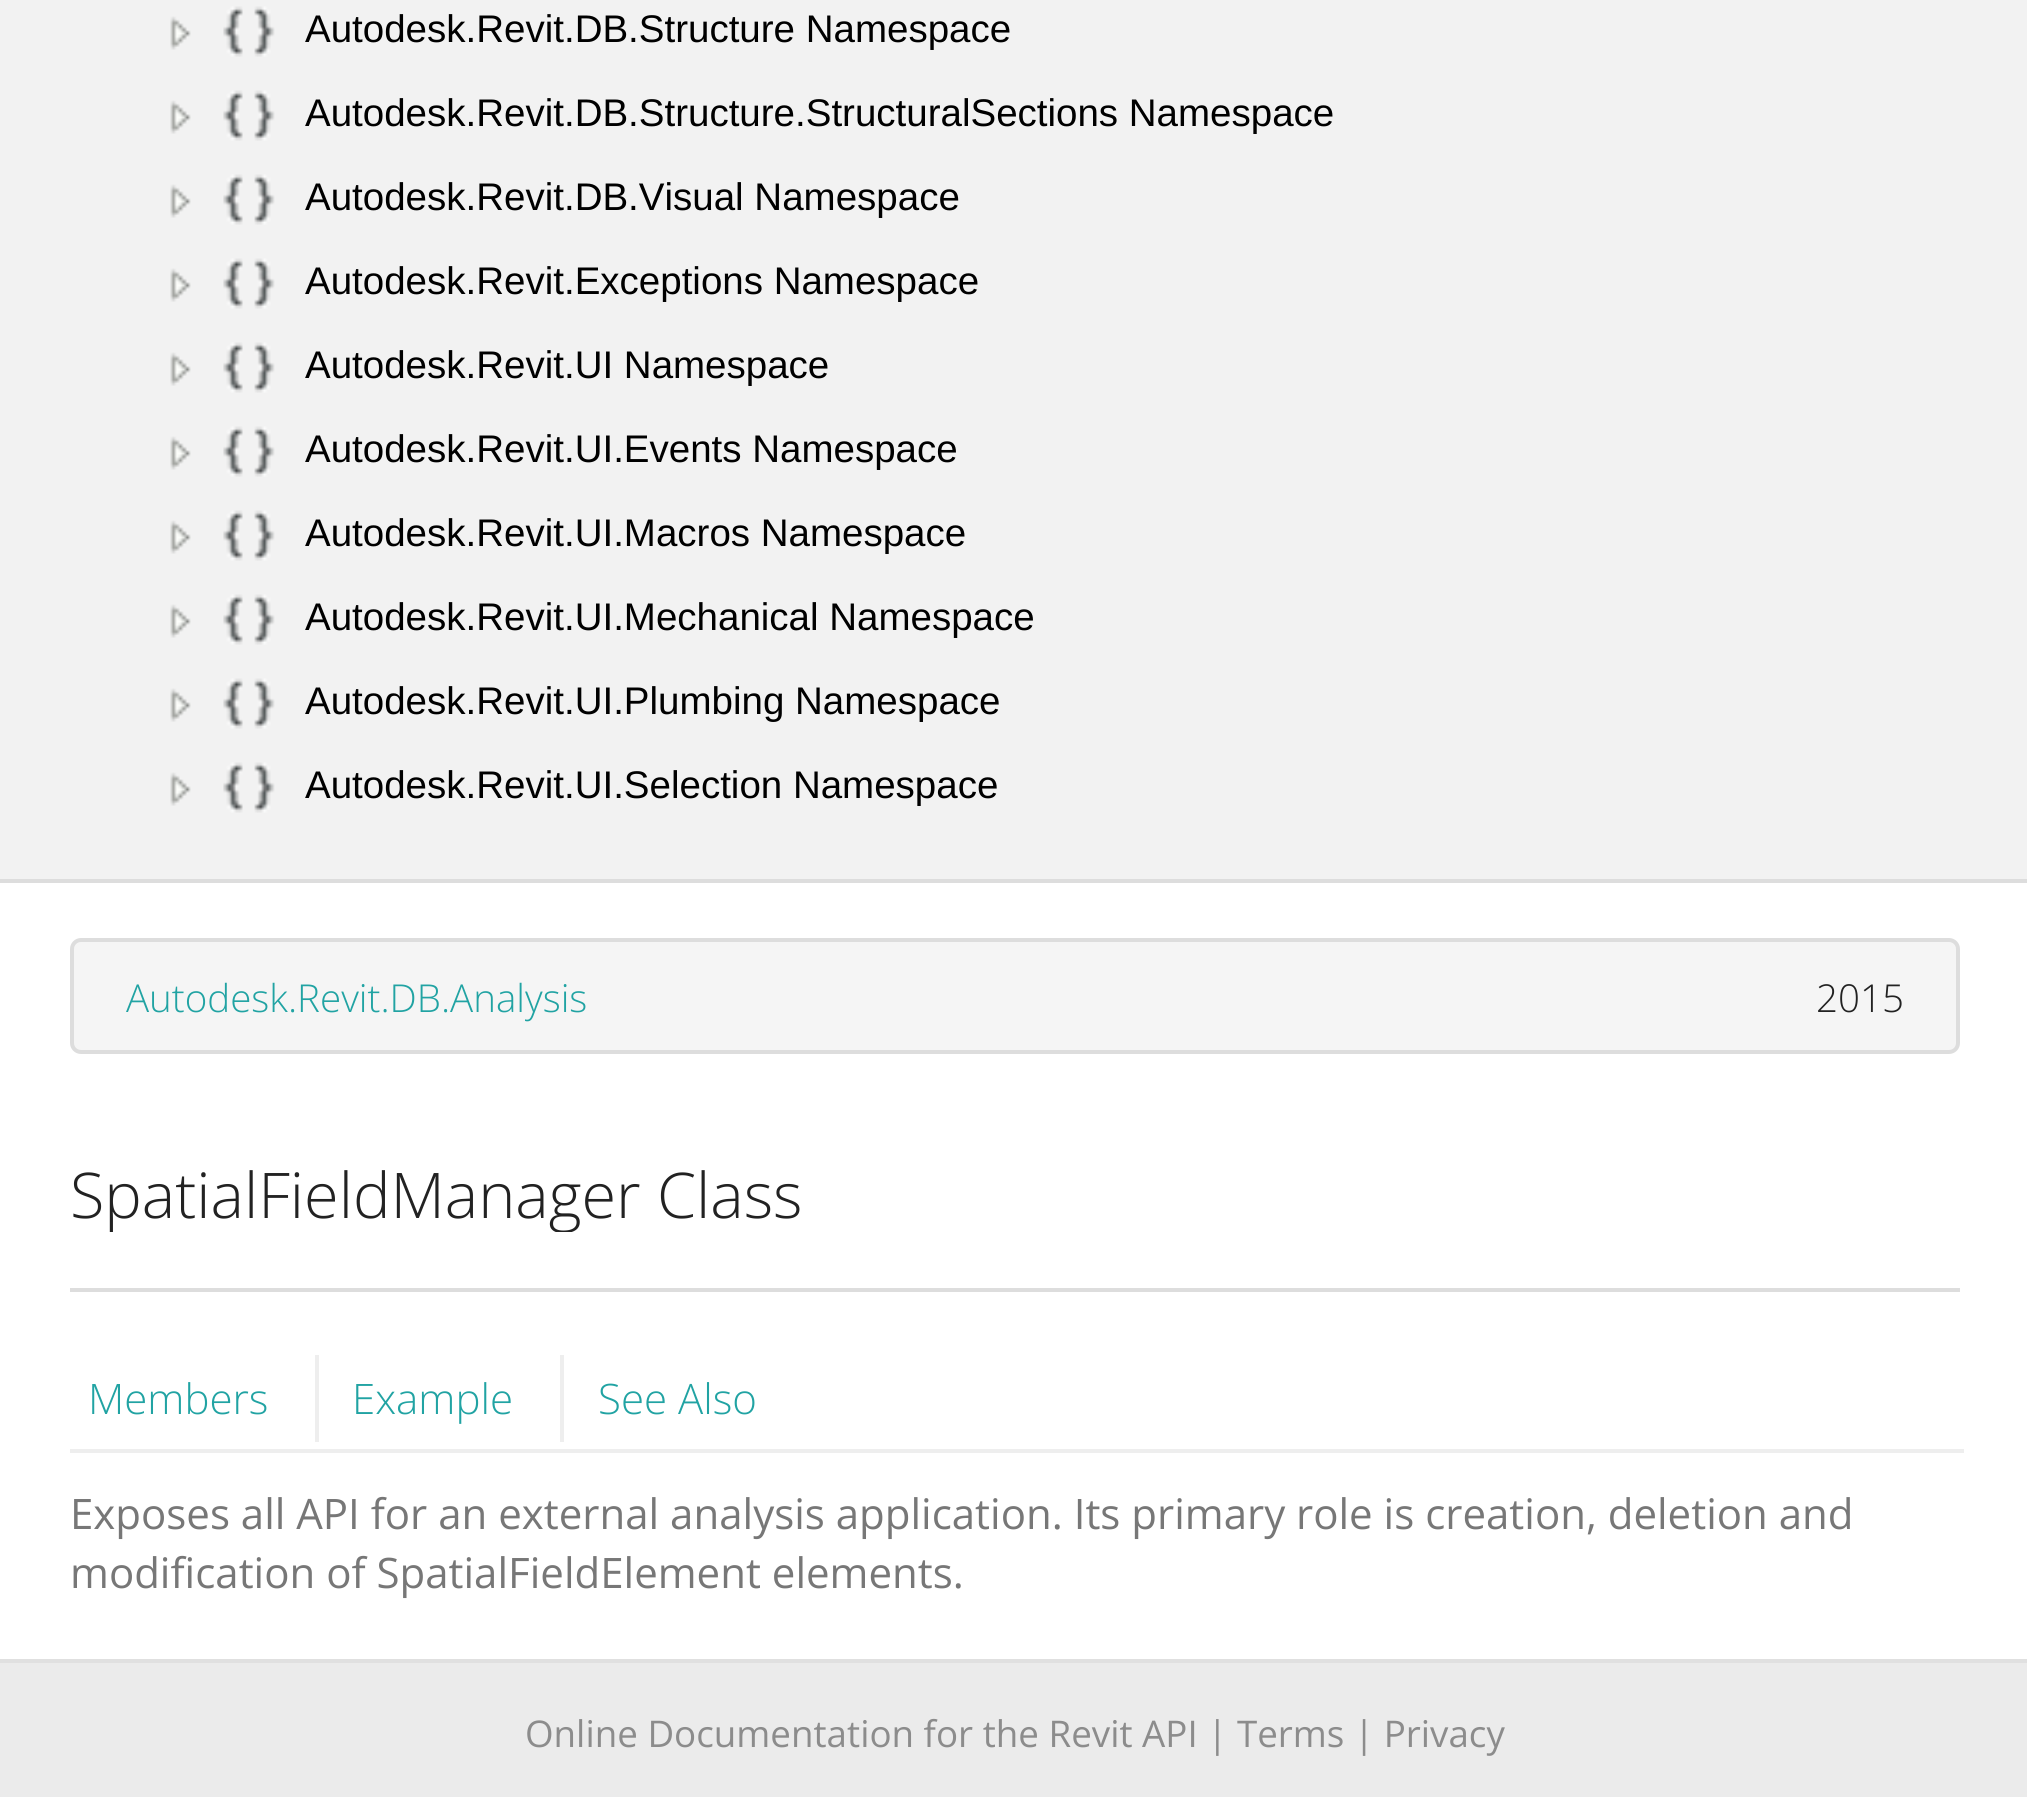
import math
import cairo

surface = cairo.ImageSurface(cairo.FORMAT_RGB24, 2027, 1797)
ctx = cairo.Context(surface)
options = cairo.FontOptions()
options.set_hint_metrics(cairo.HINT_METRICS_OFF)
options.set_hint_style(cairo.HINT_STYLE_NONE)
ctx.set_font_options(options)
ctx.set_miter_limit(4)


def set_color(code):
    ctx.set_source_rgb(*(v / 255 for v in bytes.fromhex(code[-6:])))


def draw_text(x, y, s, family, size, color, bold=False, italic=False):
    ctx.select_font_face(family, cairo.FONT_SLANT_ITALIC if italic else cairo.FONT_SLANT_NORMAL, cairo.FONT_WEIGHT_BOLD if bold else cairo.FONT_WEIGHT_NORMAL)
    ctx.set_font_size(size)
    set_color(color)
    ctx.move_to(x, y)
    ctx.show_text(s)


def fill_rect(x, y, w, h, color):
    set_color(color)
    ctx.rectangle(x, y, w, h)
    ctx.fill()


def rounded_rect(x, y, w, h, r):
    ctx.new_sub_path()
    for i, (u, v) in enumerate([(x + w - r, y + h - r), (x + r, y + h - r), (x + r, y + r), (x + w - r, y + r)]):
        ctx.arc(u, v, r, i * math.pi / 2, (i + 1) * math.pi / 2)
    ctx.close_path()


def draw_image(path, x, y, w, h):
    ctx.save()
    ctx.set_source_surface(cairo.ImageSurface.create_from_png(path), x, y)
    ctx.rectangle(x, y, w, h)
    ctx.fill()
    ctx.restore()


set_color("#ffffff")
ctx.paint()
fill_rect(0, 0, 2027, 879, "#f2f2f2")
fill_rect(0, 879, 2027, 4, "#dddddd")
draw_image("assets/img1.png", 170, 16, 21, 34)
draw_image("assets/img2.png", 223, 6, 52, 51)
draw_text(305, 42, "Autodesk.Revit.DB.Structure Namespace", "Liberation Sans", 38.5, "#000000")
draw_image("assets/img1.png", 170, 100, 21, 34)
draw_image("assets/img2.png", 223, 90, 52, 51)
draw_text(305, 126, "Autodesk.Revit.DB.Structure.StructuralSections Namespace", "Liberation Sans", 38.5, "#000000")
draw_image("assets/img1.png", 170, 184, 21, 34)
draw_image("assets/img2.png", 223, 174, 52, 51)
draw_text(305, 210, "Autodesk.Revit.DB.Visual Namespace", "Liberation Sans", 38.5, "#000000")
draw_image("assets/img1.png", 170, 268, 21, 34)
draw_image("assets/img2.png", 223, 258, 52, 51)
draw_text(305, 294, "Autodesk.Revit.Exceptions Namespace", "Liberation Sans", 38.5, "#000000")
draw_image("assets/img1.png", 170, 352, 21, 34)
draw_image("assets/img2.png", 223, 342, 52, 51)
draw_text(305, 378, "Autodesk.Revit.UI Namespace", "Liberation Sans", 38.5, "#000000")
draw_image("assets/img1.png", 170, 436, 21, 34)
draw_image("assets/img2.png", 223, 426, 52, 51)
draw_text(305, 462, "Autodesk.Revit.UI.Events Namespace", "Liberation Sans", 38.5, "#000000")
draw_image("assets/img1.png", 170, 520, 21, 34)
draw_image("assets/img2.png", 223, 510, 52, 51)
draw_text(305, 546, "Autodesk.Revit.UI.Macros Namespace", "Liberation Sans", 38.5, "#000000")
draw_image("assets/img1.png", 170, 604, 21, 34)
draw_image("assets/img2.png", 223, 594, 52, 51)
draw_text(305, 630, "Autodesk.Revit.UI.Mechanical Namespace", "Liberation Sans", 38.5, "#000000")
draw_image("assets/img1.png", 170, 688, 21, 34)
draw_image("assets/img2.png", 223, 678, 52, 51)
draw_text(305, 714, "Autodesk.Revit.UI.Plumbing Namespace", "Liberation Sans", 38.5, "#000000")
draw_image("assets/img1.png", 170, 772, 21, 34)
draw_image("assets/img2.png", 223, 762, 52, 51)
draw_text(305, 798, "Autodesk.Revit.UI.Selection Namespace", "Liberation Sans", 38.5, "#000000")
set_color("#f5f5f5")
rounded_rect(72, 940, 1886, 112, 9)
ctx.fill_preserve()
set_color("#dddddd")
ctx.set_line_width(4)
ctx.stroke()
draw_text(126, 1012, "Autodesk.Revit.DB.Analysis", "Open Sans Light", 38.5, "#21a3a3")
draw_text(1816, 1012, "2015", "Open Sans Light", 38.5, "#222222")
ctx.save()
ctx.rectangle(70, 1155, 1418, 77)
ctx.clip()
draw_text(70, 1218, "SpatialFieldManager Class", "Open Sans Light", 63, "#222222")
ctx.restore()
fill_rect(70, 1288, 1890, 4, "#dddddd")
fill_rect(70, 1449, 1894, 4, "#eeeeee")
draw_text(88, 1414, "Members", "Open Sans Light", 42, "#21a3a3")
fill_rect(315, 1355, 4, 87, "#eeeeee")
draw_text(352, 1414, "Example", "Open Sans Light", 42, "#21a3a3")
fill_rect(560, 1355, 4, 87, "#eeeeee")
draw_text(598, 1414, "See Also", "Open Sans Light", 42, "#21a3a3")
draw_text(70, 1529, "Exposes all API for an external analysis application. Its primary role is creation, deletion and", "Open Sans", 42, "#777777")
draw_text(70, 1588, "modification of SpatialFieldElement elements.", "Open Sans", 42, "#777777")
fill_rect(0, 1663, 2027, 134, "#ebebeb")
fill_rect(0, 1659, 2027, 4, "#e0e0e0")
draw_text(525, 1747, "Online Documentation for the Revit API | Terms | Privacy", "Open Sans", 36.75, "#8c8c8c")
surface.write_to_png("output.png")
